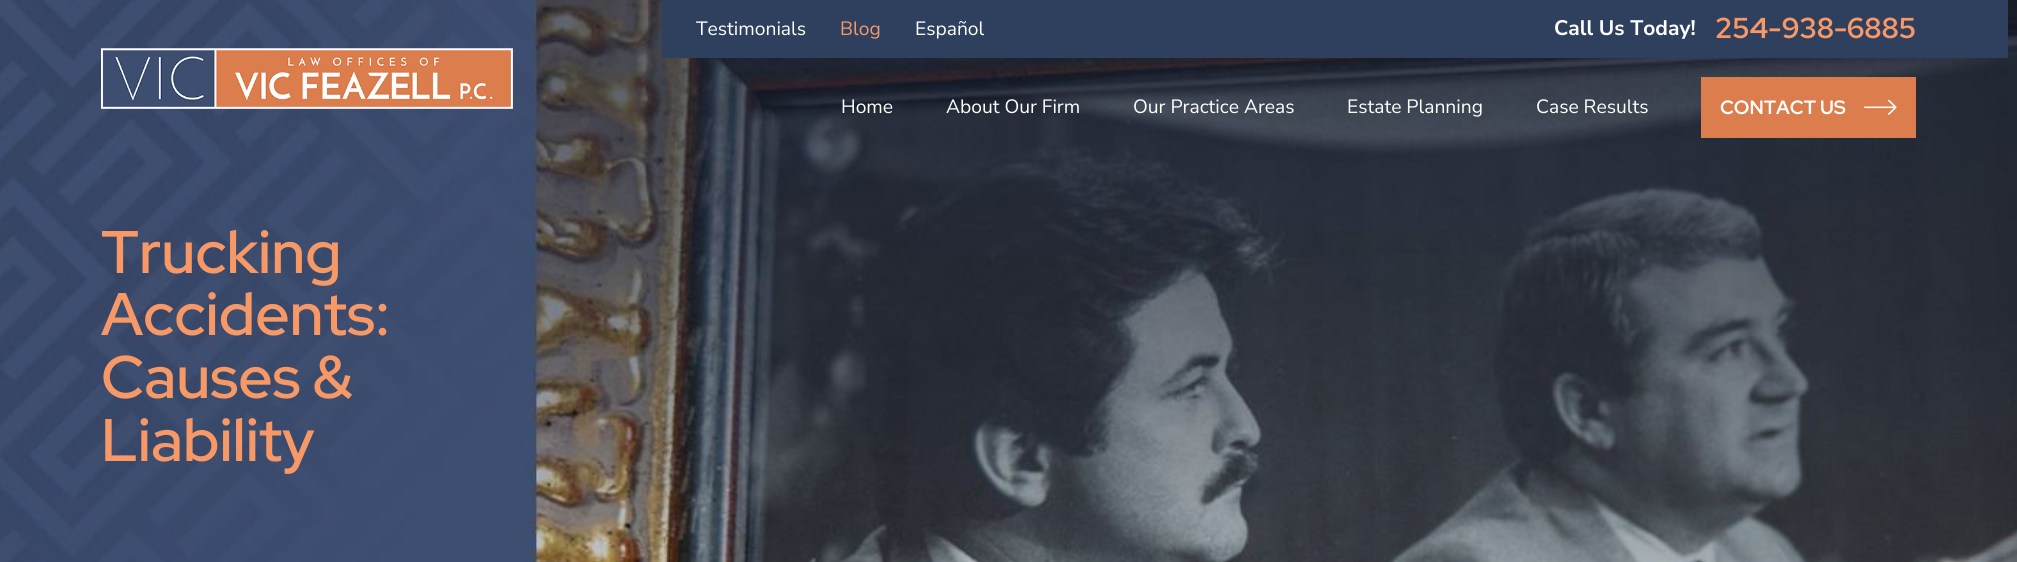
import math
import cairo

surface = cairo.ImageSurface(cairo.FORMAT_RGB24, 2017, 562)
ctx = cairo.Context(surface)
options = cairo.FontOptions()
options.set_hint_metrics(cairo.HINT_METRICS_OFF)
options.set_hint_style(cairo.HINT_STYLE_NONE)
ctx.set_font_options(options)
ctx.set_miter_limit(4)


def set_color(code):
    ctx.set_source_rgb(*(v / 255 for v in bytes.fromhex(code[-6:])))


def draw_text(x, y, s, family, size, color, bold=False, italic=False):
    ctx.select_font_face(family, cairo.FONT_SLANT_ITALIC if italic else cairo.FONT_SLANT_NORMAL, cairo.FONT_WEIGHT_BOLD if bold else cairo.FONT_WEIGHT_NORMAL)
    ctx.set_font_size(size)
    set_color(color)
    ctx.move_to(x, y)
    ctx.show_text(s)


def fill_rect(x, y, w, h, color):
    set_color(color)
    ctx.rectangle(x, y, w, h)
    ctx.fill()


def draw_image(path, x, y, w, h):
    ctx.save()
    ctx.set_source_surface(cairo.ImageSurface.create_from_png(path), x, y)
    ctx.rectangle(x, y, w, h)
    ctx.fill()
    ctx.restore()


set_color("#ffffff")
ctx.paint()
draw_image("assets/img3.png", 0, 0, 2017, 562)
draw_image("assets/img1.png", 101, 48, 412, 61)
fill_rect(662, 0, 1346, 58, "#2f3f5e")
draw_text(696, 35, "Testimonials", "Nunito Sans", 19.25, "#ffffff")
draw_text(840, 35, "Blog", "Nunito Sans", 19.25, "#f79867")
draw_text(915, 35, "Español", "Nunito Sans", 19.25, "#ffffff")
draw_text(1554, 35, "Call Us Today!", "Nunito Sans", 21, "#ffffff", bold=True)
draw_text(1715, 38, "254-938-6885", "Red Hat Display", 28.75, "#f79867", bold=True)
draw_text(841, 113, "Home", "Nunito Sans", 19.25, "#ffffff")
draw_text(946, 113, "About Our Firm", "Nunito Sans", 19.25, "#ffffff")
draw_text(1133, 113, "Our Practice Areas", "Nunito Sans", 19.25, "#ffffff")
draw_text(1347, 113, "Estate Planning", "Nunito Sans", 19.25, "#ffffff")
draw_text(1536, 113, "Case Results", "Nunito Sans", 19.25, "#ffffff")
fill_rect(1701, 77, 215, 61, "#db7d4d")
draw_text(1720, 114, "CONTACT US", "Red Hat Display", 19.25, "#ffffff", bold=True)
draw_image("assets/img2.png", 1864, 99, 33, 16)
draw_text(101, 273, "Trucking", "Red Hat Display SemiBold", 60, "#f79867")
draw_text(101, 335, "Accidents:", "Red Hat Display SemiBold", 60, "#f79867")
draw_text(101, 398, "Causes &", "Red Hat Display SemiBold", 60, "#f79867")
draw_text(101, 461, "Liability", "Red Hat Display SemiBold", 60, "#f79867")
surface.write_to_png("output.png")
